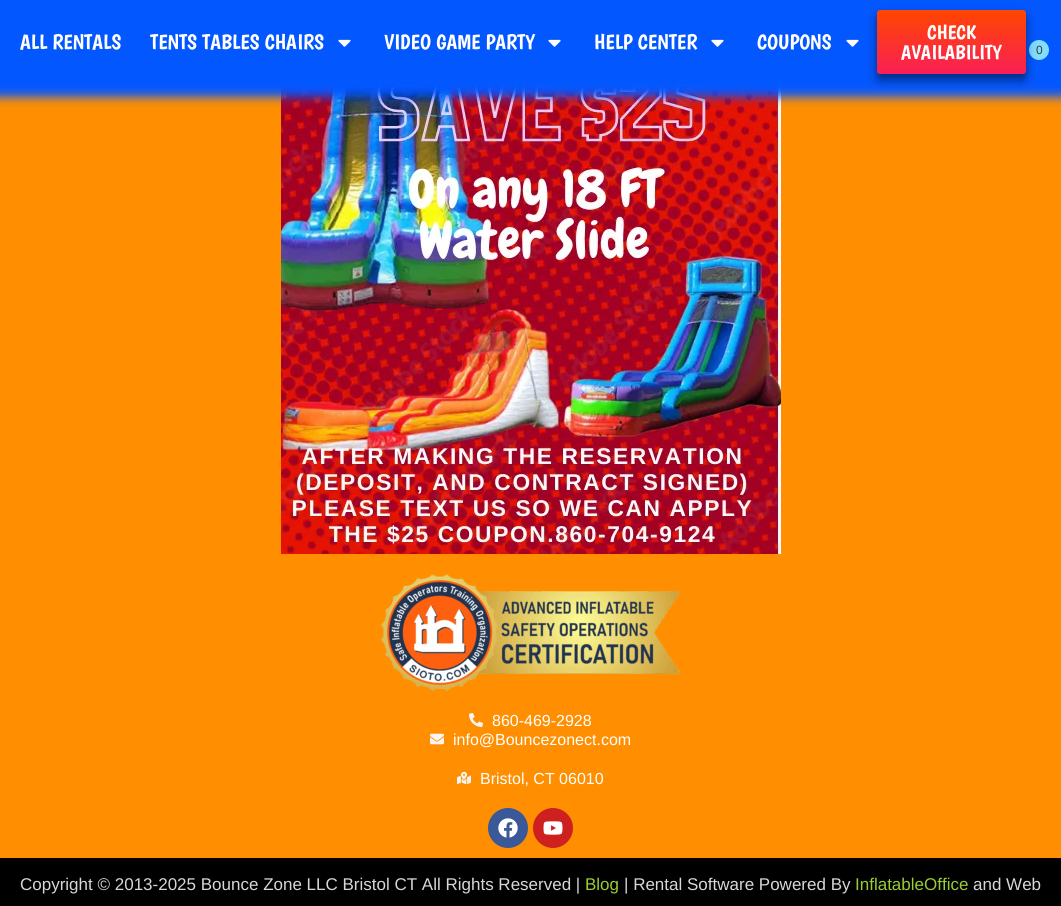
import math
import cairo

surface = cairo.ImageSurface(cairo.FORMAT_RGB24, 1061, 906)
ctx = cairo.Context(surface)
options = cairo.FontOptions()
options.set_hint_metrics(cairo.HINT_METRICS_OFF)
options.set_hint_style(cairo.HINT_STYLE_NONE)
ctx.set_font_options(options)
ctx.set_miter_limit(4)


def set_color(code):
    ctx.set_source_rgb(*(v / 255 for v in bytes.fromhex(code[-6:])))


def draw_text(x, y, s, family, size, color, bold=False, italic=False):
    ctx.select_font_face(family, cairo.FONT_SLANT_ITALIC if italic else cairo.FONT_SLANT_NORMAL, cairo.FONT_WEIGHT_BOLD if bold else cairo.FONT_WEIGHT_NORMAL)
    ctx.set_font_size(size)
    set_color(color)
    ctx.move_to(x, y)
    ctx.show_text(s)


def fill_rect(x, y, w, h, color):
    set_color(color)
    ctx.rectangle(x, y, w, h)
    ctx.fill()


def rounded_rect(x, y, w, h, r):
    ctx.new_sub_path()
    for i, (u, v) in enumerate([(x + w - r, y + h - r), (x + r, y + h - r), (x + r, y + r), (x + w - r, y + r)]):
        ctx.arc(u, v, r, i * math.pi / 2, (i + 1) * math.pi / 2)
    ctx.close_path()


def draw_shadow(x, y, w, h, r, blur, alpha):
    ctx.push_group_with_content(cairo.CONTENT_ALPHA)
    ctx.set_operator(cairo.OPERATOR_SOURCE)
    for i in range(15, -16, -2):
        e = blur * i / 6
        if min(w, h) + 2 * e > 0:
            ctx.set_source_rgba(0, 0, 0, alpha * math.erfc((i - 1) / 8.5) / 2)
            rounded_rect(x - e, y - e, w + 2 * e, h + 2 * e, max(0, min(r + e + blur * .6, min(w, h) / 2 + e)))
            ctx.fill()
    ctx.mask(ctx.pop_group())


def draw_image(path, x, y, w, h):
    ctx.save()
    ctx.set_source_surface(cairo.ImageSurface.create_from_png(path), x, y)
    ctx.rectangle(x, y, w, h)
    ctx.fill()
    ctx.restore()


set_color("#ff8f00")
ctx.paint()
draw_image("assets/img2.png", 281, 84, 500, 470)
set_color("#0357ff")
draw_shadow(-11, -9, 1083, 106, 0, 5, 1)
fill_rect(0, 0, 1061, 84, "#0357ff")
draw_text(20, 49, "ALL RENTALS", "Boogaloo", 21, "#ffffff")
draw_text(150, 49, "TENTS TABLES CHAIRS", "Boogaloo", 21, "#ffffff")
draw_image("assets/img1.png", 338, 39, 13, 8)
draw_text(384, 49, "VIDEO GAME PARTY", "Boogaloo", 21, "#ffffff")
draw_image("assets/img1.png", 548, 39, 13, 8)
draw_text(594, 49, "HELP CENTER", "Boogaloo", 21, "#ffffff")
draw_image("assets/img1.png", 711, 39, 13, 8)
draw_text(757, 49, "COUPONS", "Boogaloo", 21, "#ffffff")
draw_image("assets/img1.png", 846, 39, 13, 8)
set_color("#81deff")
ctx.arc(1039, 50, 10, 0, 2 * math.pi)
ctx.fill()
set_color("#000000")
draw_shadow(877, 16, 149, 64, 3, 5, 0.5)
gradient = cairo.LinearGradient(952, 10, 952, 74)
gradient.add_color_stop_rgba(0, 1, 0.275, 0.004, 1)
gradient.add_color_stop_rgba(1, 0.98, 0.122, 0.333, 1)
ctx.set_source(gradient)
rounded_rect(877, 10, 149, 64, 3)
ctx.fill()
draw_text(927, 39, "CHECK", "Boogaloo", 20, "#ffffff")
draw_text(901, 59, "AVAILABILITY", "Boogaloo", 20, "#ffffff")
draw_text(1036, 54, "0", "Liberation Sans", 12, "#3e3838")
draw_image("assets/img3.png", 381, 574, 300, 117)
draw_image("assets/img4.png", 469, 713, 14, 14)
draw_text(492, 726, "860-469-2928", "Liberation Sans", 16, "#ffffff")
draw_image("assets/img5.png", 430, 733, 14, 12)
draw_text(453, 745, "info@Bouncezonect.com", "Liberation Sans", 16, "#ffffff")
draw_image("assets/img6.png", 457, 771, 14, 14)
draw_text(480, 784, "Bristol, CT 06010", "Liberation Sans", 16, "#ffffff")
set_color("#3b5998")
ctx.new_path()
ctx.arc(508, 828, 20, 0, 2 * math.pi)
ctx.fill()
draw_image("assets/img7.png", 498, 818, 20, 20)
set_color("#cd201f")
ctx.arc(553, 828, 20, 0, 2 * math.pi)
ctx.fill()
draw_image("assets/img8.png", 543, 821, 20, 14)
fill_rect(0, 858, 1061, 48, "#000000")
draw_text(20, 890, "Copyright © 2013-2025 Bounce Zone LLC Bristol CT All Rights Reserved |", "Liberation Sans", 17, "#d7d7d7")
draw_text(585, 890, "Blog", "Liberation Sans", 17, "#9acd32")
draw_text(624, 890, "| Rental Software Powered By", "Liberation Sans", 17, "#d7d7d7")
draw_text(855, 890, "InflatableOffice", "Liberation Sans", 17, "#9acd32")
draw_text(973, 890, "and Web", "Liberation Sans", 17, "#d7d7d7")
surface.write_to_png("output.png")
